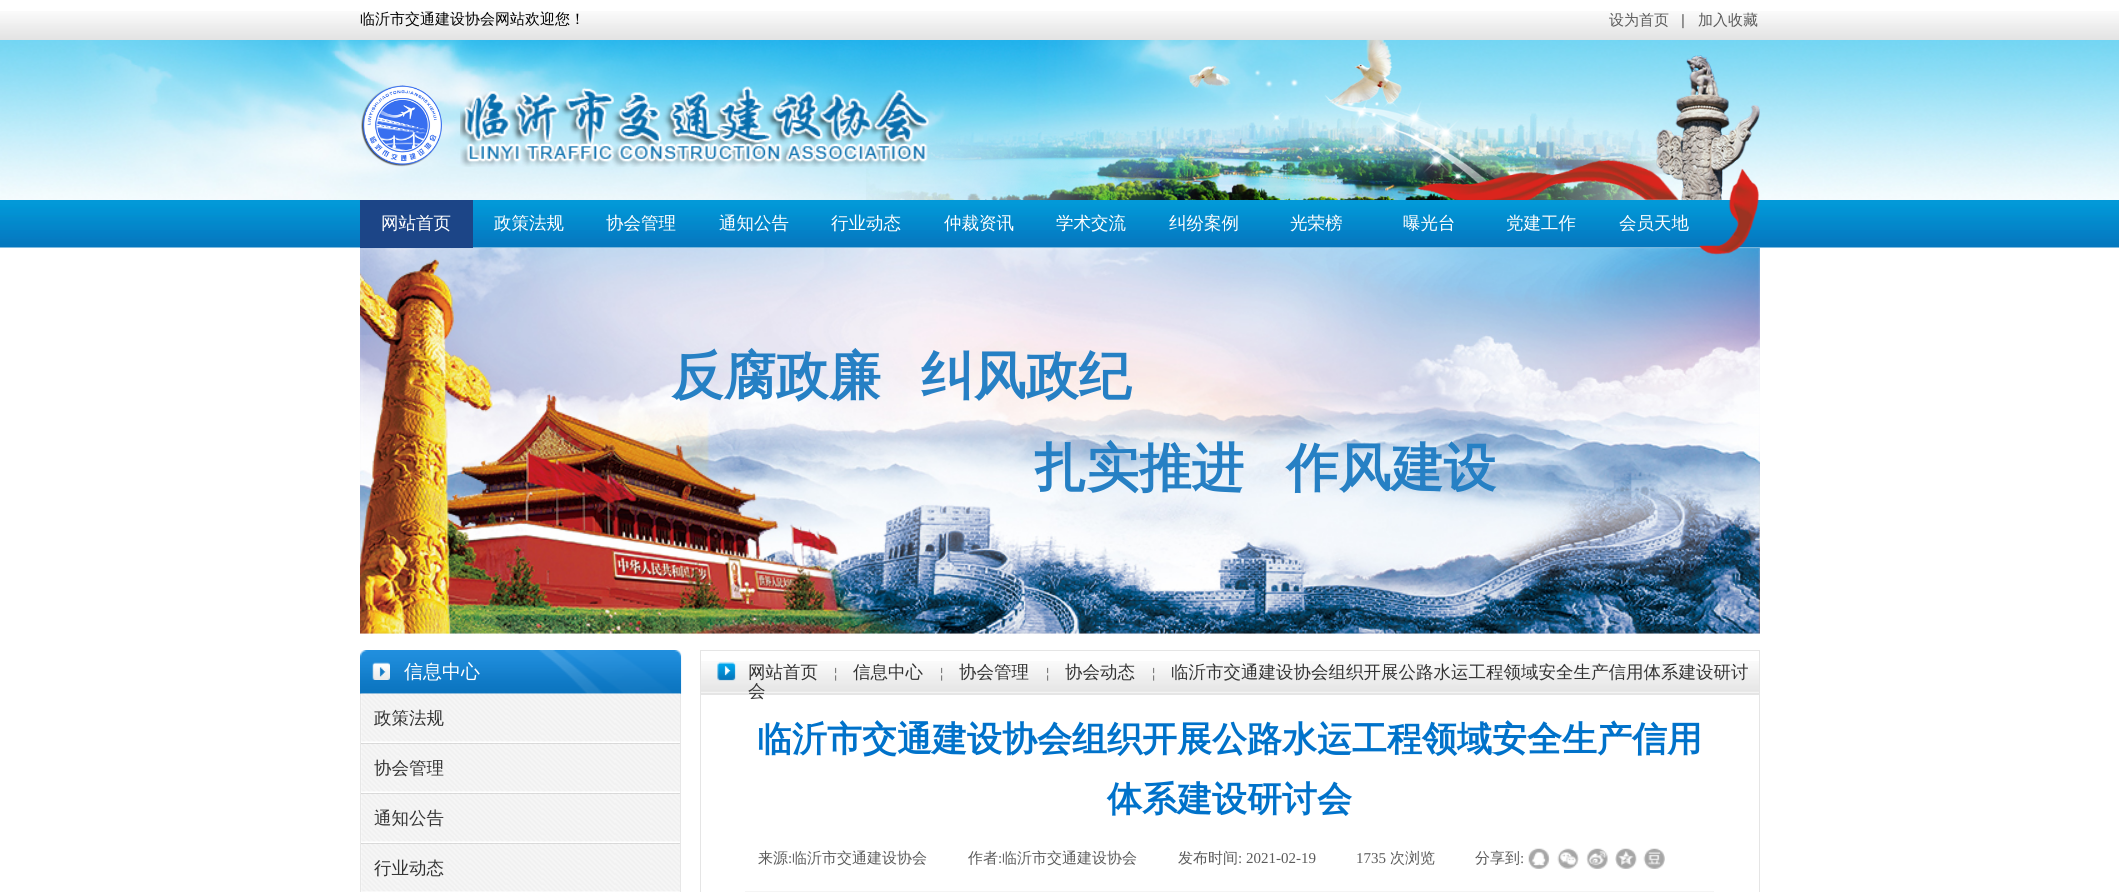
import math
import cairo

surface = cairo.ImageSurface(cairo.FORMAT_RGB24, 2119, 892)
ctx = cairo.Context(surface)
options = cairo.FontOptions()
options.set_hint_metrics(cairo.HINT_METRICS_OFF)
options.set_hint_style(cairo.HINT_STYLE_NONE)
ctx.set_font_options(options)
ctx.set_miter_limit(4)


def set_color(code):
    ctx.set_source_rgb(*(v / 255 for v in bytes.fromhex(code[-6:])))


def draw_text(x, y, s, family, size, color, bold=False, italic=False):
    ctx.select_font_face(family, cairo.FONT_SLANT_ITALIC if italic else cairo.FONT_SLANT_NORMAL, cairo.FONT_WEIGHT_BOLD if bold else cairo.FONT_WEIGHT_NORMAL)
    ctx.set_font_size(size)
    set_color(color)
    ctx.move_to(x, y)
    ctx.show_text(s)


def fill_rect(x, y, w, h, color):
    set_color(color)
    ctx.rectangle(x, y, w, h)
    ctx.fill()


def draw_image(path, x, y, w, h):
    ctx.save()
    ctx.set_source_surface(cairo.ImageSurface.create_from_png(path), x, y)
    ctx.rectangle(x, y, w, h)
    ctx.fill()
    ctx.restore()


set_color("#ffffff")
ctx.paint()
draw_image("assets/img1.png", 0, 11, 2119, 29)
draw_text(360, 24, "临沂市交通建设协会网站欢迎您！", "WenQuanYi Zen Hei Medium", 15, "#000000")
draw_text(1609, 25, "设为首页", "WenQuanYi Zen Hei Medium", 15, "#5a5a5a")
draw_text(1681, 25, "|", "Liberation Sans", 15, "#5a5a5a")
draw_text(1698, 25, "加入收藏", "WenQuanYi Zen Hei Medium", 15, "#5a5a5a")
draw_image("assets/img11.png", 360, 247, 1400, 387)
draw_image("assets/img2.png", 0, 40, 2119, 208)
draw_image("assets/img3.png", 361, 85, 81, 82)
draw_image("assets/img7.png", 866, 103, 816, 97)
draw_image("assets/img4.png", 460, 86, 469, 81)
draw_image("assets/img5.png", 1189, 40, 360, 160)
draw_image("assets/img6.png", 1656, 55, 104, 145)
draw_image("assets/img8.png", 1417, 160, 262, 40)
draw_image("assets/img9.png", 0, 200, 2119, 48)
fill_rect(360, 200, 113, 48, "#1c4587")
draw_text(381, 229, "网站首页", "WenQuanYi Zen Hei Medium", 17.5, "#ffffff")
draw_text(494, 229, "政策法规", "WenQuanYi Zen Hei Medium", 17.5, "#ffffff")
draw_text(606, 229, "协会管理", "WenQuanYi Zen Hei Medium", 17.5, "#ffffff")
draw_text(719, 229, "通知公告", "WenQuanYi Zen Hei Medium", 17.5, "#ffffff")
draw_text(831, 229, "行业动态", "WenQuanYi Zen Hei Medium", 17.5, "#ffffff")
draw_text(944, 229, "仲裁资讯", "WenQuanYi Zen Hei Medium", 17.5, "#ffffff")
draw_text(1056, 229, "学术交流", "WenQuanYi Zen Hei Medium", 17.5, "#ffffff")
draw_text(1169, 229, "纠纷案例", "WenQuanYi Zen Hei Medium", 17.5, "#ffffff")
draw_text(1290, 229, "光荣榜", "WenQuanYi Zen Hei Medium", 17.5, "#ffffff")
draw_text(1403, 229, "曝光台", "WenQuanYi Zen Hei Medium", 17.5, "#ffffff")
draw_text(1506, 229, "党建工作", "WenQuanYi Zen Hei Medium", 17.5, "#ffffff")
draw_text(1619, 229, "会员天地", "WenQuanYi Zen Hei Medium", 17.5, "#ffffff")
draw_image("assets/img10.png", 1699, 168, 61, 87)
draw_text(671, 394, "反腐政廉", "WenQuanYi Zen Hei", 52.5, "#2680c4", bold=True)
draw_text(921, 394, "纠风政纪", "WenQuanYi Zen Hei", 52.5, "#2680c4", bold=True)
draw_text(1034, 486, "扎实推进", "WenQuanYi Zen Hei", 52.5, "#2680c4", bold=True)
draw_text(1286, 486, "作风建设", "WenQuanYi Zen Hei", 52.5, "#2680c4", bold=True)
ctx.rectangle(360.5, 693.5, 320, 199)
set_color("#e7e7e7")
ctx.set_line_width(1)
ctx.stroke()
draw_image("assets/img12.png", 360, 650, 322, 44)
draw_image("assets/img13.png", 701, 661, 1058, 32)
ctx.rectangle(700.5, 650.5, 1059, 43)
set_color("#e5e5e5")
ctx.stroke()
draw_image("assets/img14.png", 372, 662, 18, 18)
draw_text(404, 678, "信息中心", "WenQuanYi Zen Hei Medium", 19, "#ffffff")
draw_image("assets/img15.png", 717, 662, 19, 19)
draw_text(748, 678, "网站首页", "WenQuanYi Zen Hei Medium", 17.5, "#333333")
draw_text(828, 678, "￤", "WenQuanYi Zen Hei Medium", 15, "#5a5a5a")
draw_text(853, 678, "信息中心", "WenQuanYi Zen Hei Medium", 17.5, "#333333")
draw_text(934, 678, "￤", "WenQuanYi Zen Hei Medium", 15, "#5a5a5a")
draw_text(959, 678, "协会管理", "WenQuanYi Zen Hei Medium", 17.5, "#333333")
draw_text(1040, 678, "￤", "WenQuanYi Zen Hei Medium", 15, "#5a5a5a")
draw_text(1065, 678, "协会动态", "WenQuanYi Zen Hei Medium", 17.5, "#333333")
draw_text(1146, 678, "￤", "WenQuanYi Zen Hei Medium", 15, "#5a5a5a")
draw_text(1171, 678, "临沂市交通建设协会组织开展公路水运工程领域安全生产信用体系建设研讨", "WenQuanYi Zen Hei Medium", 17.5, "#333333")
ctx.rectangle(700.5, 694.5, 1059, 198)
set_color("#e5e5e5")
ctx.stroke()
draw_text(748, 697, "会", "WenQuanYi Zen Hei Medium", 17.5, "#333333")
draw_image("assets/img16.png", 361, 693, 319, 49)
fill_rect(361, 743, 319, 1, "#d0d0d0")
draw_text(374, 724, "政策法规", "WenQuanYi Zen Hei Medium", 17.5, "#333333")
draw_image("assets/img17.png", 361, 743, 319, 49)
fill_rect(361, 793, 319, 1, "#d0d0d0")
draw_text(374, 774, "协会管理", "WenQuanYi Zen Hei Medium", 17.5, "#333333")
draw_image("assets/img17.png", 361, 793, 319, 49)
fill_rect(361, 843, 319, 1, "#d0d0d0")
draw_text(374, 824, "通知公告", "WenQuanYi Zen Hei Medium", 17.5, "#333333")
draw_image("assets/img17.png", 361, 843, 319, 49)
draw_text(374, 874, "行业动态", "WenQuanYi Zen Hei Medium", 17.5, "#333333")
draw_text(757, 751, "临沂市交通建设协会组织开展公路水运工程领域安全生产信用", "WenQuanYi Zen Hei", 35, "#0072ca", bold=True)
draw_text(1107, 811, "体系建设研讨会", "WenQuanYi Zen Hei", 35, "#0072ca", bold=True)
draw_text(758, 863, "来源", "WenQuanYi Zen Hei Medium", 15, "#5a5a5a")
draw_text(788, 863, ":", "Liberation Serif", 15, "#5a5a5a")
draw_text(792, 863, "临沂市交通建设协会", "WenQuanYi Zen Hei Medium", 15, "#5a5a5a")
draw_text(968, 863, "作者", "WenQuanYi Zen Hei Medium", 15, "#5a5a5a")
draw_text(998, 863, ":", "Liberation Serif", 15, "#5a5a5a")
draw_text(1002, 863, "临沂市交通建设协会", "WenQuanYi Zen Hei Medium", 15, "#5a5a5a")
draw_text(1178, 863, "发布时间", "WenQuanYi Zen Hei Medium", 15, "#5a5a5a")
draw_text(1238, 863, ": 2021-02-19", "Liberation Serif", 15, "#5a5a5a")
draw_text(1356, 863, "1735", "Liberation Serif", 15, "#5a5a5a")
draw_text(1390, 863, "次浏览", "WenQuanYi Zen Hei Medium", 15, "#5a5a5a")
draw_text(1475, 863, "分享到", "WenQuanYi Zen Hei Medium", 15, "#5a5a5a")
draw_text(1520, 863, ":", "Liberation Serif", 15, "#5a5a5a")
draw_image("assets/img18.png", 1528, 848, 22, 21)
draw_image("assets/img19.png", 1557, 848, 22, 21)
draw_image("assets/img20.png", 1586, 848, 22, 21)
draw_image("assets/img21.png", 1615, 848, 22, 21)
draw_image("assets/img22.png", 1643, 848, 22, 21)
fill_rect(745, 891, 969, 1, "#f5f5f5")
surface.write_to_png("output.png")
